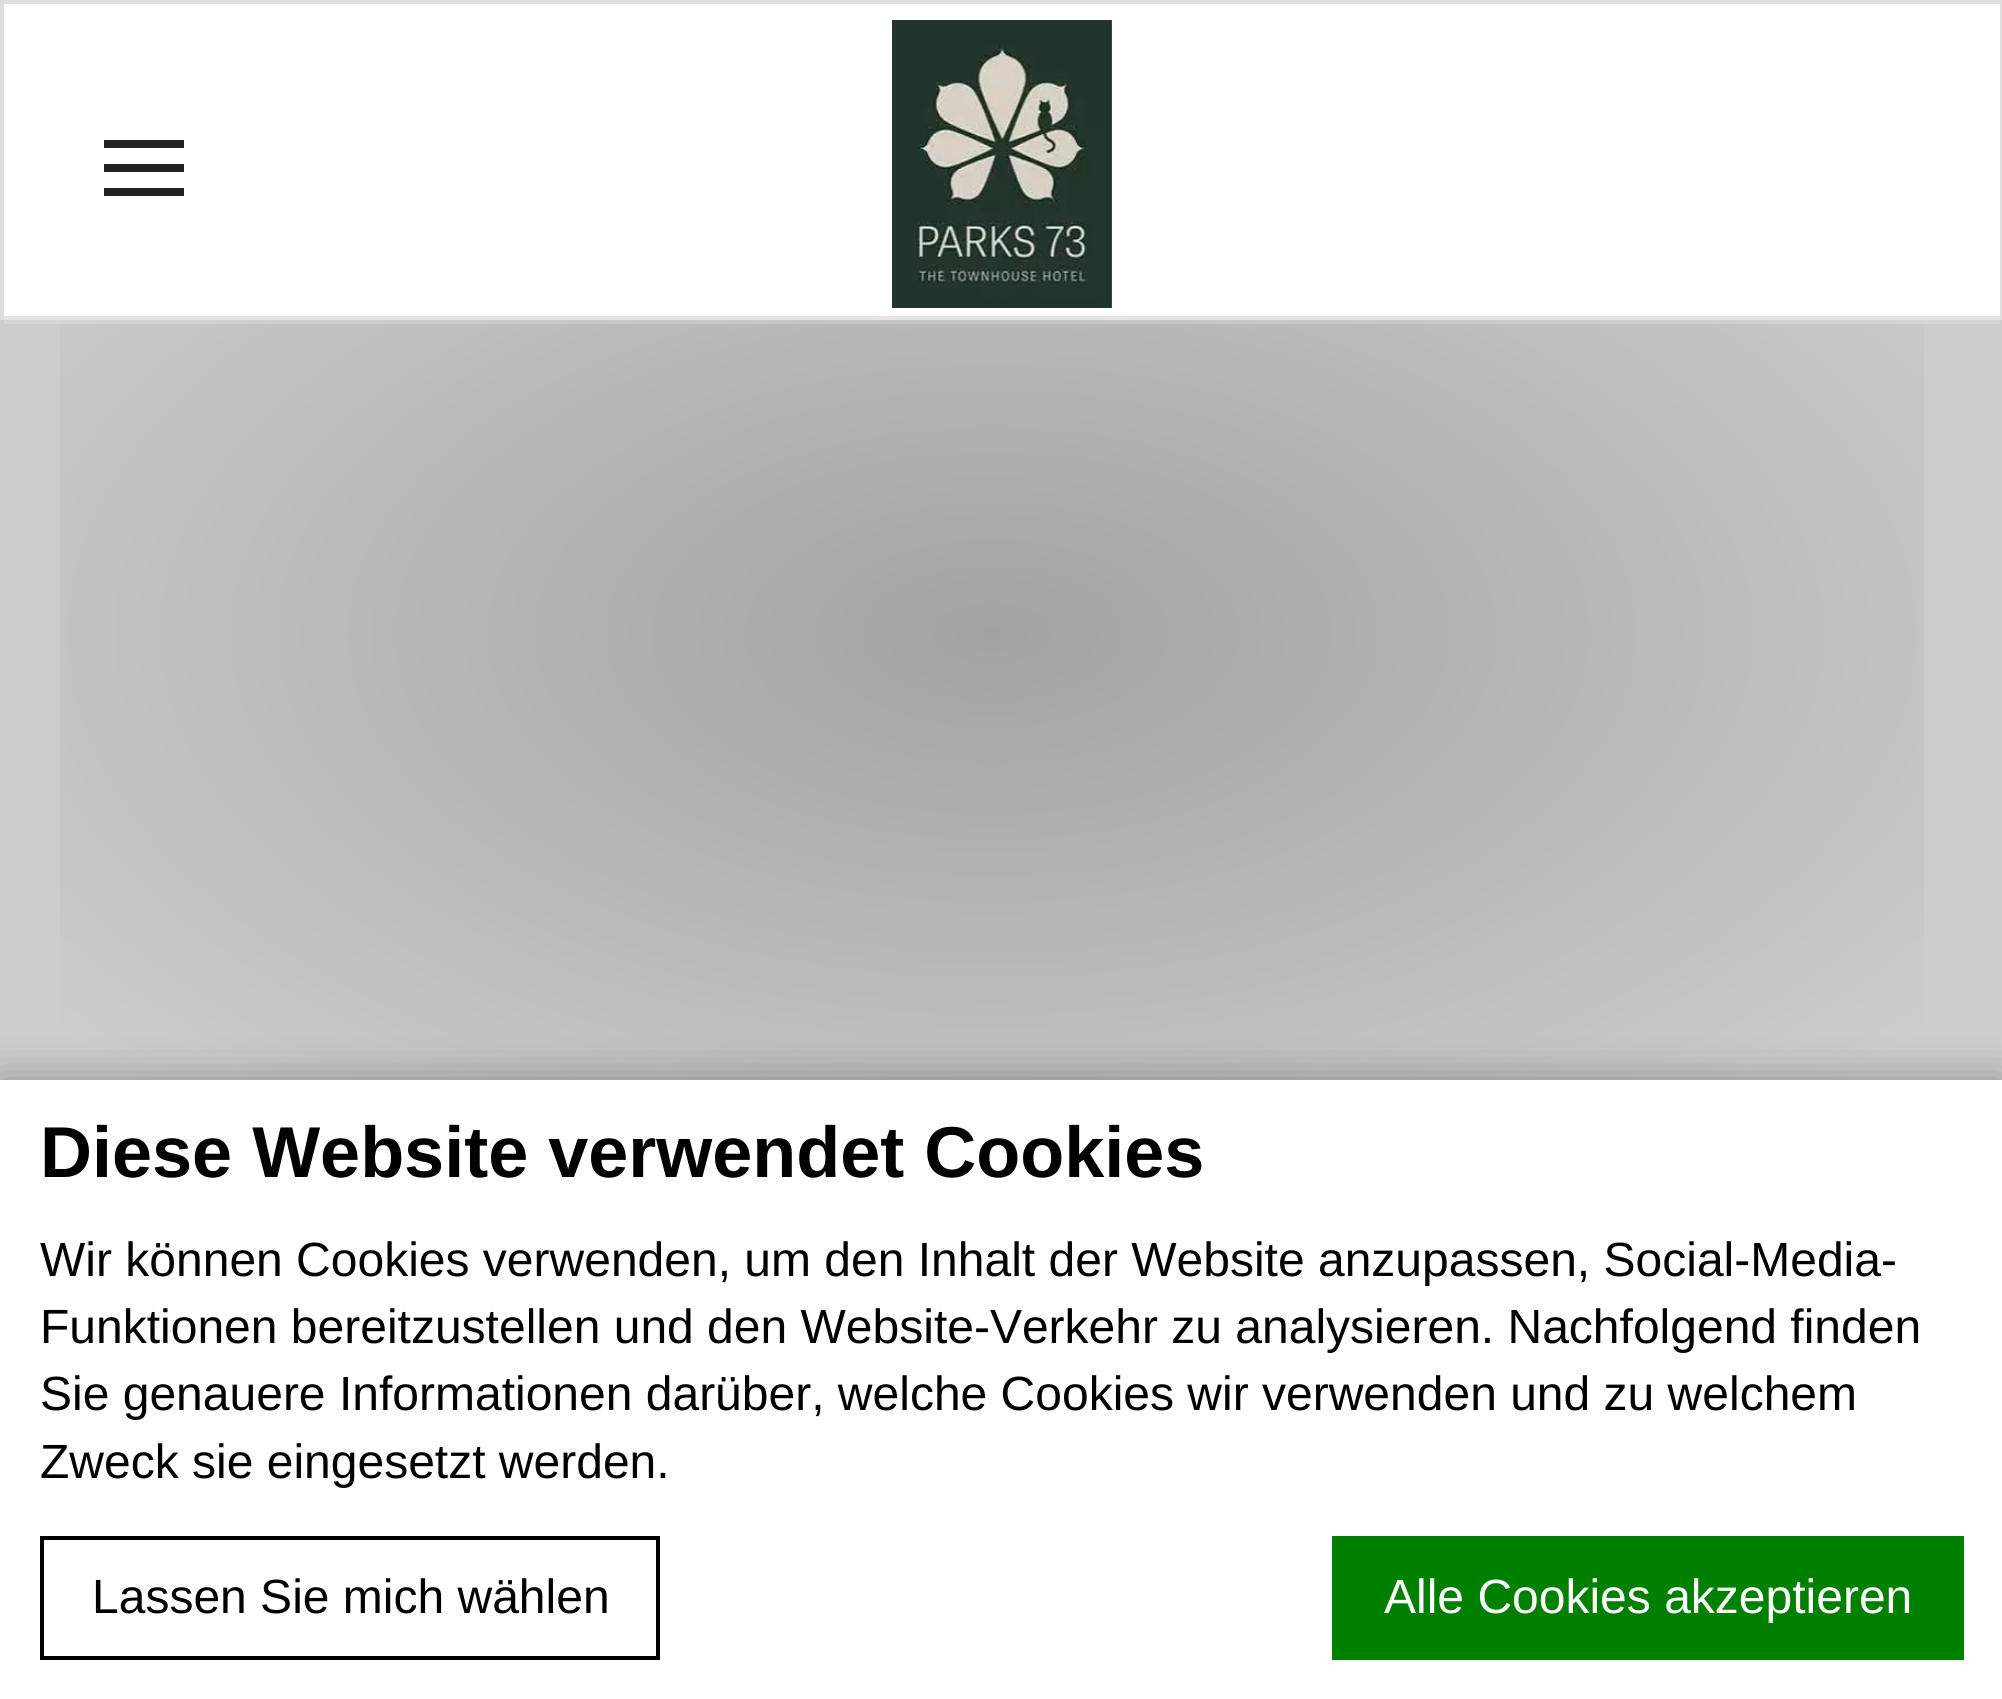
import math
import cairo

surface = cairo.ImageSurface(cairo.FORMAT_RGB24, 2002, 1699)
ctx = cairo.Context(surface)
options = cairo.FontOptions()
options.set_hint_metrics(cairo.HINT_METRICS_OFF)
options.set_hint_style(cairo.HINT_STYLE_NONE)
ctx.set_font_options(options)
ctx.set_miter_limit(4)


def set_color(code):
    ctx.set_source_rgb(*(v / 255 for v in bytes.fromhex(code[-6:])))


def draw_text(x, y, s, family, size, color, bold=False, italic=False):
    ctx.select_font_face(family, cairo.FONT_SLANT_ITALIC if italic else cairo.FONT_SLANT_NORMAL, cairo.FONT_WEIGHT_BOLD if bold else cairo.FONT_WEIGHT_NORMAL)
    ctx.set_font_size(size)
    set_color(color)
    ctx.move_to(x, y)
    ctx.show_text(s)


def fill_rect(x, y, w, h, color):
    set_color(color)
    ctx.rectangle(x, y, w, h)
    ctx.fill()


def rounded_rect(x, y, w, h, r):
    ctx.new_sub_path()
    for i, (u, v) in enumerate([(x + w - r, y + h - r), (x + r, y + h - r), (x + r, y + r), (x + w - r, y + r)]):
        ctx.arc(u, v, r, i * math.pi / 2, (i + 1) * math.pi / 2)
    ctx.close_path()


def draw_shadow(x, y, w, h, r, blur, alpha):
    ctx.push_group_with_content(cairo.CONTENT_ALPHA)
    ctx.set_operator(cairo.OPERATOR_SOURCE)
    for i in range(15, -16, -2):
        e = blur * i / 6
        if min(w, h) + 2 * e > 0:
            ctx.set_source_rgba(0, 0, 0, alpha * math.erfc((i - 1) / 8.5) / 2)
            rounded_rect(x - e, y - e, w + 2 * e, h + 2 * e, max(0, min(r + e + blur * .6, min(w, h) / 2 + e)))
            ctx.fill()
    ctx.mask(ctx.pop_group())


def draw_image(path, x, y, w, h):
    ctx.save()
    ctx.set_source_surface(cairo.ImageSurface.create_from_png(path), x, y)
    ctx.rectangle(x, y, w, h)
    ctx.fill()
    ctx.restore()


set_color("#cccccc")
ctx.paint()
set_color("#ffffff")
ctx.rectangle(2, 2, 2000, 316)
ctx.fill_preserve()
set_color("#dddddd")
ctx.set_line_width(4)
ctx.stroke()
draw_image("assets/img2.png", 60, 320, 1864, 760)
ctx.set_source_rgba(1, 1, 1, 0.2)
ctx.rectangle(4, 316, 1996, 8)
ctx.fill()
fill_rect(104, 164, 80, 8, "#222222")
fill_rect(104, 140, 80, 8, "#222222")
fill_rect(104, 188, 80, 8, "#222222")
draw_image("assets/img1.png", 892, 20, 220, 288)
set_color("#000000")
draw_shadow(0, 1080, 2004, 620, 0, 20, 0.3)
fill_rect(0, 1080, 2002, 619, "#ffffff")
draw_text(40, 1177, "Diese Website verwendet Cookies", "Liberation Sans", 72, "#000000", bold=True)
draw_text(40, 1276, "Wir können Cookies verwenden, um den Inhalt der Website anzupassen, Social-Media-", "Liberation Sans", 48, "#000000")
draw_text(40, 1343, "Funktionen bereitzustellen und den Website-Verkehr zu analysieren. Nachfolgend finden", "Liberation Sans", 48, "#000000")
draw_text(40, 1410, "Sie genauere Informationen darüber, welche Cookies wir verwenden und zu welchem", "Liberation Sans", 48, "#000000")
draw_text(40, 1478, "Zweck sie eingesetzt werden.", "Liberation Sans", 48, "#000000")
ctx.rectangle(42, 1538, 616, 120)
ctx.stroke()
draw_text(92, 1613, "Lassen Sie mich wählen", "Liberation Sans", 48, "#000000")
fill_rect(1332, 1536, 632, 124, "#008000")
draw_text(1384, 1613, "Alle Cookies akzeptieren", "Liberation Sans", 48, "#ffffff")
surface.write_to_png("output.png")
